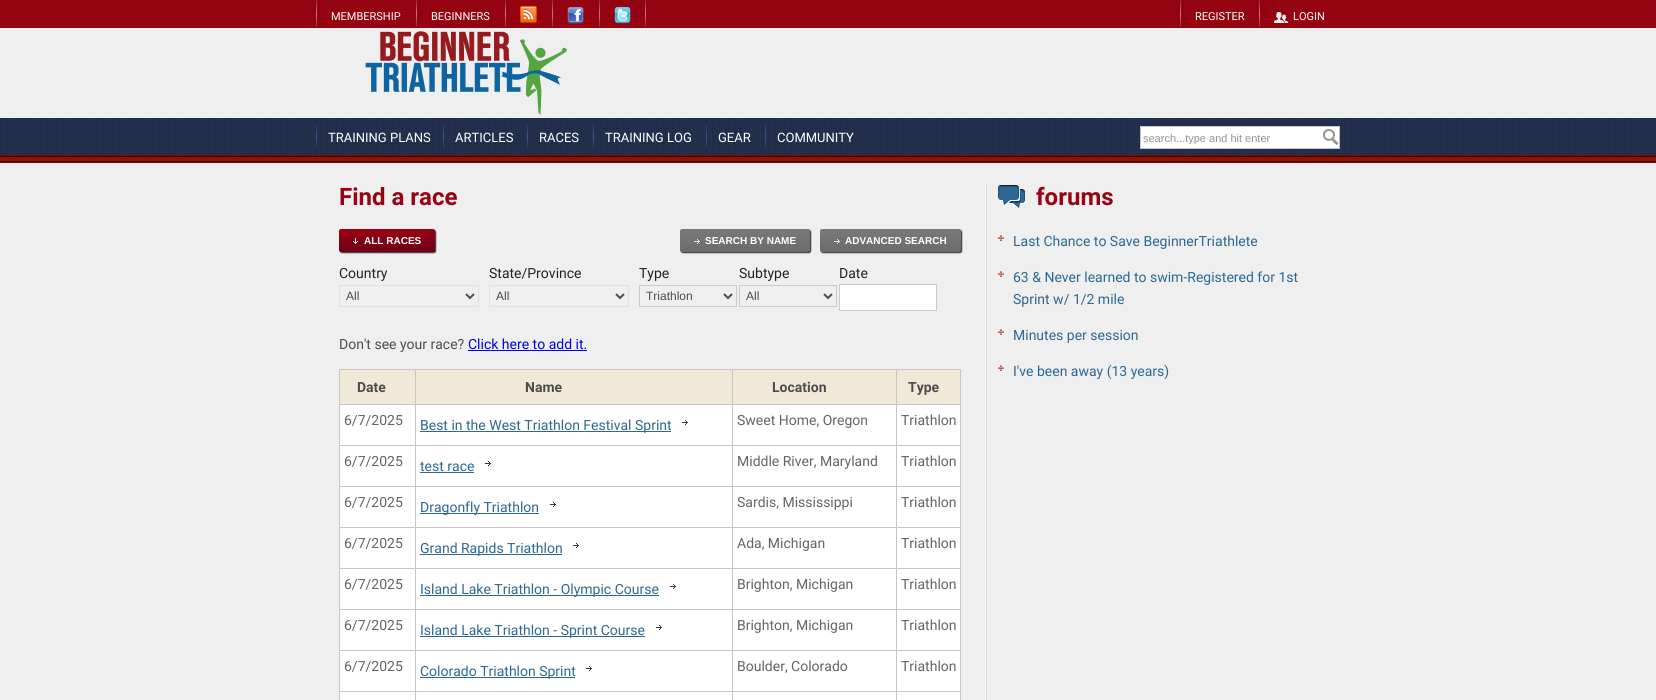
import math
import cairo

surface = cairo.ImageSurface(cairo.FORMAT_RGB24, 1656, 700)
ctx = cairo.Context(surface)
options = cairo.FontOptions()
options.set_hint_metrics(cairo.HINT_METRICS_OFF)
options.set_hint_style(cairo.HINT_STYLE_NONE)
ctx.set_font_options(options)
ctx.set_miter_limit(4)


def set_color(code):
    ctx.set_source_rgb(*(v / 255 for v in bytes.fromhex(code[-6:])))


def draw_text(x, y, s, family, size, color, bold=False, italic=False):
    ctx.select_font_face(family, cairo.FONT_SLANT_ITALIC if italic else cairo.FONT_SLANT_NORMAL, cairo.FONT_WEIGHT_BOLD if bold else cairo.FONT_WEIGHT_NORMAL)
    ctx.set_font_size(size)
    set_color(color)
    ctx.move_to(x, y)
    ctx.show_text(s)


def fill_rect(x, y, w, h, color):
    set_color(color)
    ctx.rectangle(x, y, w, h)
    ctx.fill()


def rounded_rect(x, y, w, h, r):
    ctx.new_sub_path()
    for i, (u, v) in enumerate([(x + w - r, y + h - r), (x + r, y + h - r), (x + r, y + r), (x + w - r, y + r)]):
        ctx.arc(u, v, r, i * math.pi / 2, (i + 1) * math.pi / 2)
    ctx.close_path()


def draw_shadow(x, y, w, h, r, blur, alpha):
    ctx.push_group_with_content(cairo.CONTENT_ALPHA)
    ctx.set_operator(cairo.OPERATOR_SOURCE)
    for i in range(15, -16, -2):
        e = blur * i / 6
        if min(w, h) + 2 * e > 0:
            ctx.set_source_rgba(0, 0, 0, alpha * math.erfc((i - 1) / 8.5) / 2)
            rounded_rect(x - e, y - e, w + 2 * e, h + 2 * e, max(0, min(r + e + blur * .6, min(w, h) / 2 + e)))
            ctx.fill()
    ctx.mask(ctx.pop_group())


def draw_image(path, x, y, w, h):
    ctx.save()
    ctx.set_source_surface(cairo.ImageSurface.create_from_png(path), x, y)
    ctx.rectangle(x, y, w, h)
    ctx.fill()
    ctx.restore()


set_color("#efefef")
ctx.paint()
draw_image("assets/img1.png", 0, 0, 1656, 28)
draw_image("assets/img2.png", 316, 0, 1, 27)
draw_text(331, 20, "MEMBERSHIP", "Roboto", 11, "#ffffff")
draw_image("assets/img2.png", 416, 0, 1, 27)
draw_text(431, 20, "BEGINNERS", "Roboto", 11, "#ffffff")
draw_image("assets/img2.png", 505, 0, 1, 27)
draw_image("assets/img3.png", 520, 6, 17, 17)
draw_image("assets/img2.png", 552, 0, 1, 27)
draw_image("assets/img4.png", 567, 7, 17, 17)
draw_image("assets/img2.png", 645, 0, 1, 27)
draw_image("assets/img2.png", 599, 0, 1, 27)
draw_image("assets/img5.png", 614, 7, 17, 17)
draw_image("assets/img2.png", 1180, 0, 1, 27)
draw_text(1195, 20, "REGISTER", "Roboto", 11, "#ffffff")
draw_image("assets/img2.png", 1259, 0, 1, 27)
draw_image("assets/img6.png", 1274, 12, 14, 11)
draw_text(1293, 20, "LOGIN", "Roboto", 11, "#ffffff")
draw_image("assets/img7.png", 365, 31, 202, 84)
draw_image("assets/img8.png", 0, 118, 1656, 45)
draw_image("assets/img9.png", 316, 118, 1, 37)
draw_text(328, 142, "TRAINING PLANS", "Roboto", 13, "#ffffff")
draw_image("assets/img10.png", 443, 118, 1, 37)
draw_text(455, 142, "ARTICLES", "Roboto", 13, "#ffffff")
draw_image("assets/img10.png", 527, 118, 1, 37)
draw_text(539, 142, "RACES", "Roboto", 13, "#ffffff")
draw_image("assets/img11.png", 593, 119, 1, 36)
draw_text(605, 142, "TRAINING LOG", "Roboto", 13, "#ffffff")
draw_image("assets/img9.png", 706, 118, 1, 37)
draw_text(718, 142, "GEAR", "Roboto", 13, "#ffffff")
draw_image("assets/img10.png", 765, 118, 1, 37)
draw_text(777, 142, "COMMUNITY", "Roboto", 13, "#ffffff")
ctx.rectangle(1140.5, 126.5, 199, 22)
ctx.fill_preserve()
set_color("#c6c6c6")
ctx.set_line_width(1)
ctx.stroke()
ctx.save()
ctx.rectangle(1143, 132, 174, 12)
ctx.clip()
draw_text(1143, 142, "search...type and hit enter", "Liberation Sans", 11, "#929292")
ctx.restore()
draw_image("assets/img12.png", 1323, 129, 16, 16)
draw_image("assets/img13.png", 985, 185, 2, 515)
draw_text(339, 205, "Find a race", "Roboto", 24, "#990210", bold=True)
set_color("#343232")
draw_shadow(340, 230, 96, 23, 2, 0.5, 1)
gradient = cairo.LinearGradient(387, 229, 387, 252)
gradient.add_color_stop_rgba(0, 0.6, 0.008, 0.063, 1)
gradient.add_color_stop_rgba(1, 0.427, 0, 0.098, 1)
ctx.set_source(gradient)
rounded_rect(339, 229, 96, 23, 2)
ctx.fill()
draw_image("assets/img14.png", 353, 238, 5, 6)
draw_text(364, 244, "ALL RACES", "Liberation Sans", 10, "#ffffff", bold=True)
set_color("#343232")
draw_shadow(681, 230, 130, 23, 2, 0.5, 1)
gradient = cairo.LinearGradient(745, 229, 745, 252)
gradient.add_color_stop_rgba(0, 0.478, 0.478, 0.486, 1)
gradient.add_color_stop_rgba(1, 0.416, 0.416, 0.42, 1)
ctx.set_source(gradient)
rounded_rect(680, 229, 130, 23, 2)
ctx.fill()
draw_image("assets/img15.png", 694, 239, 6, 5)
draw_text(705, 244, "SEARCH BY NAME", "Liberation Sans", 10, "#ffffff", bold=True)
set_color("#343232")
draw_shadow(821, 230, 141, 23, 2, 0.5, 1)
gradient = cairo.LinearGradient(891, 229, 891, 252)
gradient.add_color_stop_rgba(0, 0.478, 0.478, 0.486, 1)
gradient.add_color_stop_rgba(1, 0.416, 0.416, 0.42, 1)
ctx.set_source(gradient)
rounded_rect(820, 229, 141, 23, 2)
ctx.fill()
draw_image("assets/img15.png", 834, 239, 6, 5)
draw_text(845, 244, "ADVANCED SEARCH", "Liberation Sans", 10, "#ffffff", bold=True)
draw_text(339, 278, "Country", "Roboto", 14, "#222222")
ctx.rectangle(339.5, 285.5, 139, 21)
set_color("#e1e1e1")
ctx.stroke()
ctx.new_path()
ctx.move_to(466, 294)
ctx.line_to(470, 298)
ctx.line_to(474, 294)
set_color("#4d4d4d")
ctx.set_line_width(2)
ctx.stroke()
draw_text(346, 300, "All", "Liberation Sans", 12, "#4d4d4d")
draw_text(489, 278, "State/Province", "Roboto", 14, "#222222")
ctx.rectangle(489.5, 285.5, 139, 21)
set_color("#e1e1e1")
ctx.set_line_width(1)
ctx.stroke()
ctx.new_path()
ctx.move_to(616, 294)
ctx.line_to(620, 298)
ctx.line_to(624, 294)
set_color("#4d4d4d")
ctx.set_line_width(2)
ctx.stroke()
draw_text(496, 300, "All", "Liberation Sans", 12, "#4d4d4d")
draw_text(639, 278, "Type", "Roboto", 14, "#222222")
ctx.rectangle(639.5, 285.5, 97, 21)
set_color("#cbcbcb")
ctx.set_line_width(1)
ctx.stroke()
ctx.new_path()
ctx.move_to(724, 294)
ctx.line_to(728, 298)
ctx.line_to(732, 294)
set_color("#4d4d4d")
ctx.set_line_width(2)
ctx.stroke()
draw_text(646, 300, "Triathlon", "Liberation Sans", 12, "#4d4d4d")
draw_text(739, 278, "Subtype", "Roboto", 14, "#222222")
ctx.rectangle(739.5, 285.5, 97, 21)
set_color("#cbcbcb")
ctx.set_line_width(1)
ctx.stroke()
ctx.new_path()
ctx.move_to(824, 294)
ctx.line_to(828, 298)
ctx.line_to(832, 294)
set_color("#4d4d4d")
ctx.set_line_width(2)
ctx.stroke()
draw_text(746, 300, "All", "Liberation Sans", 12, "#4d4d4d")
draw_text(839, 278, "Date", "Roboto", 14, "#222222")
set_color("#ffffff")
ctx.rectangle(839.5, 284.5, 97, 26)
ctx.fill_preserve()
set_color("#cbcbcb")
ctx.set_line_width(1)
ctx.stroke()
draw_text(339, 349, "Don't see your race?", "Roboto", 14, "#4d4d4d")
draw_text(468, 349, "Click here to add it.", "Roboto", 14, "#0000ee")
fill_rect(468, 350, 119, 1, "#0000ee")
fill_rect(340, 405, 620, 295, "#ffffff")
fill_rect(339, 369, 622, 1, "#c6c6c6")
fill_rect(960, 369, 1, 331, "#c6c6c6")
fill_rect(339, 369, 1, 331, "#c6c6c6")
fill_rect(340, 370, 620, 34, "#f1e9d7")
fill_rect(896, 691, 1, 9, "#c6c6c6")
fill_rect(896, 691, 65, 1, "#c6c6c6")
fill_rect(896, 650, 1, 42, "#c6c6c6")
fill_rect(896, 650, 65, 1, "#c6c6c6")
fill_rect(896, 609, 1, 42, "#c6c6c6")
fill_rect(896, 609, 65, 1, "#c6c6c6")
fill_rect(896, 568, 1, 42, "#c6c6c6")
fill_rect(896, 568, 65, 1, "#c6c6c6")
fill_rect(896, 527, 1, 42, "#c6c6c6")
fill_rect(896, 527, 65, 1, "#c6c6c6")
fill_rect(896, 486, 1, 42, "#c6c6c6")
fill_rect(896, 486, 65, 1, "#c6c6c6")
fill_rect(896, 445, 1, 42, "#c6c6c6")
fill_rect(896, 445, 65, 1, "#c6c6c6")
fill_rect(896, 404, 1, 42, "#c6c6c6")
fill_rect(896, 404, 65, 1, "#c6c6c6")
fill_rect(896, 369, 1, 36, "#c6c6c6")
fill_rect(732, 691, 1, 9, "#c6c6c6")
fill_rect(732, 691, 165, 1, "#c6c6c6")
fill_rect(732, 650, 1, 42, "#c6c6c6")
fill_rect(732, 650, 165, 1, "#c6c6c6")
fill_rect(732, 609, 1, 42, "#c6c6c6")
fill_rect(732, 609, 165, 1, "#c6c6c6")
fill_rect(732, 568, 1, 42, "#c6c6c6")
fill_rect(732, 568, 165, 1, "#c6c6c6")
fill_rect(732, 527, 1, 42, "#c6c6c6")
fill_rect(732, 527, 165, 1, "#c6c6c6")
fill_rect(732, 486, 1, 42, "#c6c6c6")
fill_rect(732, 486, 165, 1, "#c6c6c6")
fill_rect(732, 445, 1, 42, "#c6c6c6")
fill_rect(732, 445, 165, 1, "#c6c6c6")
fill_rect(732, 404, 1, 42, "#c6c6c6")
fill_rect(732, 404, 165, 1, "#c6c6c6")
fill_rect(732, 369, 1, 36, "#c6c6c6")
fill_rect(415, 691, 1, 9, "#c6c6c6")
fill_rect(415, 691, 318, 1, "#c6c6c6")
fill_rect(415, 650, 1, 42, "#c6c6c6")
fill_rect(415, 650, 318, 1, "#c6c6c6")
fill_rect(415, 609, 1, 42, "#c6c6c6")
fill_rect(415, 609, 318, 1, "#c6c6c6")
fill_rect(415, 568, 1, 42, "#c6c6c6")
fill_rect(415, 568, 318, 1, "#c6c6c6")
fill_rect(415, 527, 1, 42, "#c6c6c6")
fill_rect(415, 527, 318, 1, "#c6c6c6")
fill_rect(415, 486, 1, 42, "#c6c6c6")
fill_rect(415, 486, 318, 1, "#c6c6c6")
fill_rect(415, 445, 1, 42, "#c6c6c6")
fill_rect(415, 445, 318, 1, "#c6c6c6")
fill_rect(415, 404, 1, 42, "#c6c6c6")
fill_rect(415, 404, 318, 1, "#c6c6c6")
fill_rect(415, 369, 1, 36, "#c6c6c6")
fill_rect(339, 404, 77, 1, "#c6c6c6")
draw_text(357, 392, "Date", "Roboto", 14, "#4d4d4d", bold=True)
draw_text(525, 392, "Name", "Roboto", 14, "#4d4d4d", bold=True)
draw_text(772, 392, "Location", "Roboto", 14, "#4d4d4d", bold=True)
draw_text(908, 392, "Type", "Roboto", 14, "#4d4d4d", bold=True)
fill_rect(339, 445, 77, 1, "#c6c6c6")
draw_text(344, 425, "6/7/2025", "Roboto", 14, "#646464")
draw_image("assets/img16.png", 682, 420, 6, 5)
fill_rect(420, 431, 251, 1, "#2b6893")
draw_text(420, 430, "Best in the West Triathlon Festival Sprint", "Roboto", 14, "#2b6893")
draw_text(737, 425, "Sweet Home, Oregon", "Roboto", 14, "#646464")
draw_text(901, 425, "Triathlon", "Roboto", 14, "#646464")
fill_rect(339, 486, 77, 1, "#c6c6c6")
draw_text(344, 466, "6/7/2025", "Roboto", 14, "#646464")
draw_image("assets/img16.png", 485, 461, 6, 5)
draw_text(420, 471, "test race", "Roboto", 14, "#2b6893")
fill_rect(420, 472, 54, 1, "#2b6893")
draw_text(737, 466, "Middle River, Maryland", "Roboto", 14, "#646464")
draw_text(901, 466, "Triathlon", "Roboto", 14, "#646464")
fill_rect(339, 527, 77, 1, "#c6c6c6")
draw_text(344, 507, "6/7/2025", "Roboto", 14, "#646464")
draw_image("assets/img16.png", 550, 502, 6, 5)
fill_rect(420, 513, 119, 1, "#2b6893")
draw_text(420, 512, "Dragonfly Triathlon", "Roboto", 14, "#2b6893")
draw_text(737, 507, "Sardis, Mississippi", "Roboto", 14, "#646464")
draw_text(901, 507, "Triathlon", "Roboto", 14, "#646464")
fill_rect(339, 568, 77, 1, "#c6c6c6")
draw_text(344, 548, "6/7/2025", "Roboto", 14, "#646464")
draw_image("assets/img16.png", 573, 543, 6, 5)
fill_rect(420, 554, 142, 1, "#2b6893")
draw_text(420, 553, "Grand Rapids Triathlon", "Roboto", 14, "#2b6893")
draw_text(737, 548, "Ada, Michigan", "Roboto", 14, "#646464")
draw_text(901, 548, "Triathlon", "Roboto", 14, "#646464")
fill_rect(339, 609, 77, 1, "#c6c6c6")
draw_text(344, 589, "6/7/2025", "Roboto", 14, "#646464")
draw_image("assets/img16.png", 670, 584, 6, 5)
fill_rect(420, 595, 239, 1, "#2b6893")
draw_text(420, 594, "Island Lake Triathlon - Olympic Course", "Roboto", 14, "#2b6893")
draw_text(737, 589, "Brighton, Michigan", "Roboto", 14, "#646464")
draw_text(901, 589, "Triathlon", "Roboto", 14, "#646464")
fill_rect(339, 650, 77, 1, "#c6c6c6")
draw_text(344, 630, "6/7/2025", "Roboto", 14, "#646464")
draw_image("assets/img16.png", 656, 625, 6, 5)
fill_rect(420, 636, 225, 1, "#2b6893")
draw_text(420, 635, "Island Lake Triathlon - Sprint Course", "Roboto", 14, "#2b6893")
draw_text(737, 630, "Brighton, Michigan", "Roboto", 14, "#646464")
draw_text(901, 630, "Triathlon", "Roboto", 14, "#646464")
fill_rect(339, 691, 77, 1, "#c6c6c6")
draw_text(344, 671, "6/7/2025", "Roboto", 14, "#646464")
draw_image("assets/img16.png", 586, 666, 6, 5)
fill_rect(420, 677, 155, 1, "#2b6893")
draw_text(420, 676, "Colorado Triathlon Sprint", "Roboto", 14, "#2b6893")
draw_text(737, 671, "Boulder, Colorado", "Roboto", 14, "#646464")
draw_text(901, 671, "Triathlon", "Roboto", 14, "#646464")
draw_image("assets/img17.png", 998, 185, 27, 24)
draw_text(1036, 205, "forums", "Roboto", 24, "#990210", bold=True)
draw_image("assets/img18.png", 998, 235, 6, 7)
draw_text(1013, 246, "Last Chance to Save BeginnerTriathlete", "Roboto", 14, "#2b6893")
draw_image("assets/img18.png", 998, 271, 6, 7)
draw_text(1013, 282, "63 & Never learned to swim-Registered for 1st", "Roboto", 14, "#2b6893")
draw_text(1013, 304, "Sprint w/ 1/2 mile", "Roboto", 14, "#2b6893")
draw_image("assets/img18.png", 998, 329, 6, 7)
draw_text(1013, 340, "Minutes per session", "Roboto", 14, "#2b6893")
draw_image("assets/img18.png", 998, 365, 6, 7)
draw_text(1013, 376, "I've been away (13 years)", "Roboto", 14, "#2b6893")
surface.write_to_png("output.png")
